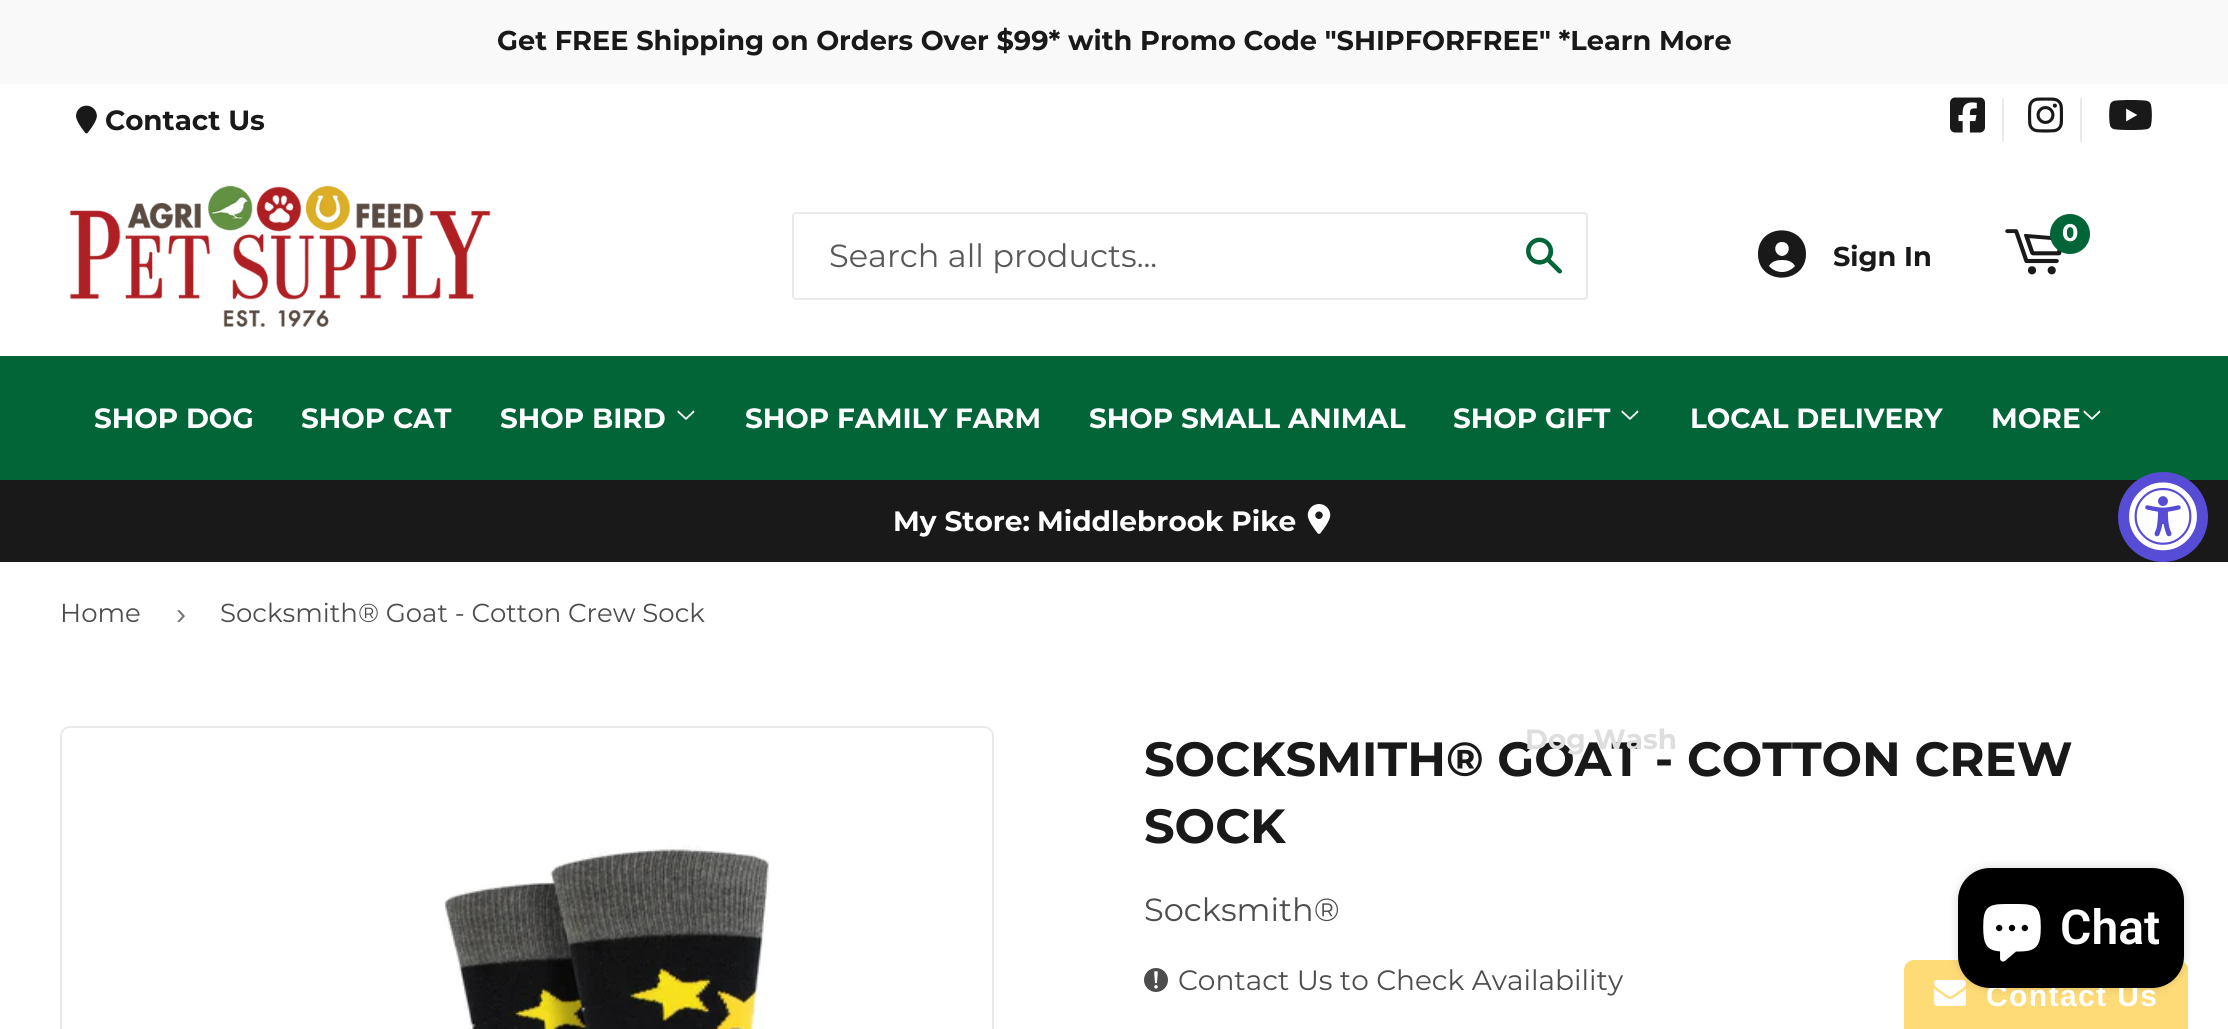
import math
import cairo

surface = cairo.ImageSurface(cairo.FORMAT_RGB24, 2228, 1029)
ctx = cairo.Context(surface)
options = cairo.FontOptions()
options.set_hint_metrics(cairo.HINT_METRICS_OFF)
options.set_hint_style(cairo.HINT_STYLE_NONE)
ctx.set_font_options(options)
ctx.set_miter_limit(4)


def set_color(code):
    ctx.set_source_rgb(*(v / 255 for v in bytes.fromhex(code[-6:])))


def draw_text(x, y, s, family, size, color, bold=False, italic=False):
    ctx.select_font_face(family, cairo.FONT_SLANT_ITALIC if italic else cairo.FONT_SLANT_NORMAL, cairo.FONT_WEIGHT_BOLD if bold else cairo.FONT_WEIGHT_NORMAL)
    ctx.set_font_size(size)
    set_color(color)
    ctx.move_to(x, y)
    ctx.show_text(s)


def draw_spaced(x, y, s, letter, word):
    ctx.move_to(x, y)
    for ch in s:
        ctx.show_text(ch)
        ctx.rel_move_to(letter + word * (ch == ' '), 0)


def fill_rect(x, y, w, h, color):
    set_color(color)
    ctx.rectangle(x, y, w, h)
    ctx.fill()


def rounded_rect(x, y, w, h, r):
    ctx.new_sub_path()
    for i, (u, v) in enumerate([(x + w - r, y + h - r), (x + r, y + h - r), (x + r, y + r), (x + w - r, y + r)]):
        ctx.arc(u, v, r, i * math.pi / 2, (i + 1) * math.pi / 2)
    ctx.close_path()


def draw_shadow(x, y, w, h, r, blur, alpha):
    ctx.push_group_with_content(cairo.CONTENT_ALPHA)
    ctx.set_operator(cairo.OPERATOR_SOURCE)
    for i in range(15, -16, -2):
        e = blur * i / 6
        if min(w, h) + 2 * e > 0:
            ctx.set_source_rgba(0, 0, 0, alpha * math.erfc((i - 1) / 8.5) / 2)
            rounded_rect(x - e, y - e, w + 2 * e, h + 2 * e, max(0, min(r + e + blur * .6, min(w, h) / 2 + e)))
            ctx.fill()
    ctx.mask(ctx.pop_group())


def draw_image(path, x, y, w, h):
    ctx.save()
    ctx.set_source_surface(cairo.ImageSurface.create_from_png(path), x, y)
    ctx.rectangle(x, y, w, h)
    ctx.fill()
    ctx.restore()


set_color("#ffffff")
ctx.paint()
fill_rect(0, 0, 2228, 84, "#f9f9f9")
draw_text(497, 50, "Get FREE Shipping on Orders Over $99* with Promo Code \"SHIPFORFREE\" *Learn More", "Montserrat", 27.2, "#191919", bold=True)
draw_image("assets/img1.png", 76, 105, 21, 29)
draw_text(105, 130, "Contact Us", "Montserrat", 27.8, "#191919", bold=True)
fill_rect(2002, 98, 2, 44, "#eaeaea")
draw_image("assets/img2.png", 1950, 97, 35, 36)
fill_rect(2080, 98, 2, 44, "#eaeaea")
draw_image("assets/img3.png", 2028, 97, 35, 36)
draw_image("assets/img4.png", 2109, 100, 43, 30)
draw_image("assets/img5.png", 69, 185, 422, 142)
rounded_rect(793, 213, 794, 86, 3)
ctx.stroke()
draw_text(829, 267, "Search all products...", "Montserrat", 32, "#585858")
draw_image("assets/img6.png", 1526, 237, 36, 37)
draw_image("assets/img7.png", 2005, 229, 57, 46)
set_color("#016537")
ctx.arc(2070, 234, 20, 0, 2 * math.pi)
ctx.fill()
draw_text(2062, 241, "0", "Montserrat", 24, "#ffffff", bold=True)
set_color("#191919")
ctx.new_path()
ctx.move_to(1795, 266)
ctx.curve_to(1792, 261, 1787, 260, 1782, 260)
ctx.curve_to(1777, 260, 1772, 261, 1769, 266)
ctx.curve_to(1776, 274, 1788, 274, 1795, 266)
ctx.close_path()
ctx.move_to(1758, 254)
ctx.curve_to(1758, 222, 1806, 223, 1806, 254)
ctx.curve_to(1806, 285, 1758, 286, 1758, 254)
ctx.close_path()
ctx.move_to(1782, 256)
ctx.curve_to(1791, 255, 1791, 242, 1782, 242)
ctx.curve_to(1773, 242, 1773, 255, 1782, 256)
ctx.close_path()
ctx.fill()
draw_text(1833, 266, "Sign In", "Montserrat", 27.2, "#191919", bold=True)
fill_rect(0, 356, 2228, 124, "#016537")
draw_text(94, 428, "SHOP DOG", "Montserrat", 27.8, "#ffffff", bold=True)
draw_text(301, 428, "SHOP CAT", "Montserrat", 27.8, "#ffffff", bold=True)
draw_text(500, 428, "SHOP BIRD", "Montserrat", 27.8, "#ffffff", bold=True)
draw_image("assets/img8.png", 677, 410, 18, 10)
draw_text(745, 428, "SHOP FAMILY FARM", "Montserrat", 27.8, "#ffffff", bold=True)
draw_text(1089, 428, "SHOP SMALL ANIMAL", "Montserrat", 27.8, "#ffffff", bold=True)
draw_text(1453, 428, "SHOP GIFT", "Montserrat", 27.8, "#ffffff", bold=True)
draw_image("assets/img8.png", 1621, 410, 18, 10)
draw_text(1991, 428, "MORE", "Montserrat", 28, "#ffffff", bold=True)
draw_image("assets/img8.png", 2083, 410, 18, 10)
draw_text(1144, 776, "SOCKSMITH® GOAT - COTTON CREW", "Montserrat", 48, "#191919", bold=True)
draw_text(1525, 749, "Dog Wash", "Montserrat", 27.8, "#dedede", bold=True)
draw_text(1690, 428, "LOCAL DELIVERY", "Montserrat", 27.8, "#ffffff", bold=True)
fill_rect(0, 480, 2228, 82, "#191919")
set_color("#574cd5")
ctx.new_path()
ctx.arc(2163, 517, 45, 0, 2 * math.pi)
ctx.fill()
draw_image("assets/img9.png", 2129, 482, 68, 69)
draw_text(893, 531, "My Store:", "Montserrat", 28, "#ffffff", bold=True)
draw_text(1037, 531, "Middlebrook Pike", "Montserrat", 28, "#ffffff", bold=True)
draw_image("assets/img10.png", 1307, 504, 24, 30)
draw_text(60, 622, "Home", "Montserrat", 26, "#4d4d4d")
draw_text(176, 624, "›", "Liberation Sans", 30, "#767676")
draw_text(220, 622, "Socksmith® Goat - Cotton Crew Sock", "Montserrat", 26, "#4d4d4d")
rounded_rect(61, 727, 932, 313, 9)
set_color("#eaeaea")
ctx.stroke()
draw_image("assets/img11.png", 444, 845, 326, 184)
draw_text(1144, 843, "SOCK", "Montserrat", 48, "#191919", bold=True)
draw_text(1144, 921, "Socksmith®", "Montserrat", 32, "#4d4d4d")
draw_image("assets/img12.png", 1144, 968, 24, 24)
draw_text(1178, 990, "Contact Us to Check Availability", "Montserrat", 28, "#4d4d4d")
set_color("#ffdb77")
ctx.new_path()
ctx.move_to(1914, 960)
ctx.line_to(2178, 960)
ctx.curve_to(2183.5, 960, 2188, 964.5, 2188, 970)
ctx.line_to(2188, 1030)
ctx.line_to(1904, 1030)
ctx.line_to(1904, 970)
ctx.curve_to(1904, 964.5, 1908.5, 960, 1914, 960)
ctx.close_path()
ctx.fill()
draw_image("assets/img14.png", 1933, 980, 33, 26)
set_color("#000000")
draw_shadow(1958, 868, 226, 120, 32, 5, 0.15)
ctx.select_font_face("Liberation Sans", cairo.FONT_SLANT_NORMAL, cairo.FONT_WEIGHT_BOLD)
ctx.set_font_size(30)
set_color("#ffffff")
draw_spaced(1986, 1006, "Contact Us", 1.4, 0)
set_color("#000000")
rounded_rect(1958, 868, 226, 120, 32)
ctx.fill()
draw_image("assets/img13.png", 1983, 904, 58, 58)
draw_text(2060, 944, "Chat", "Roboto SemiBold", 48, "#ffffff")
surface.write_to_png("output.png")
